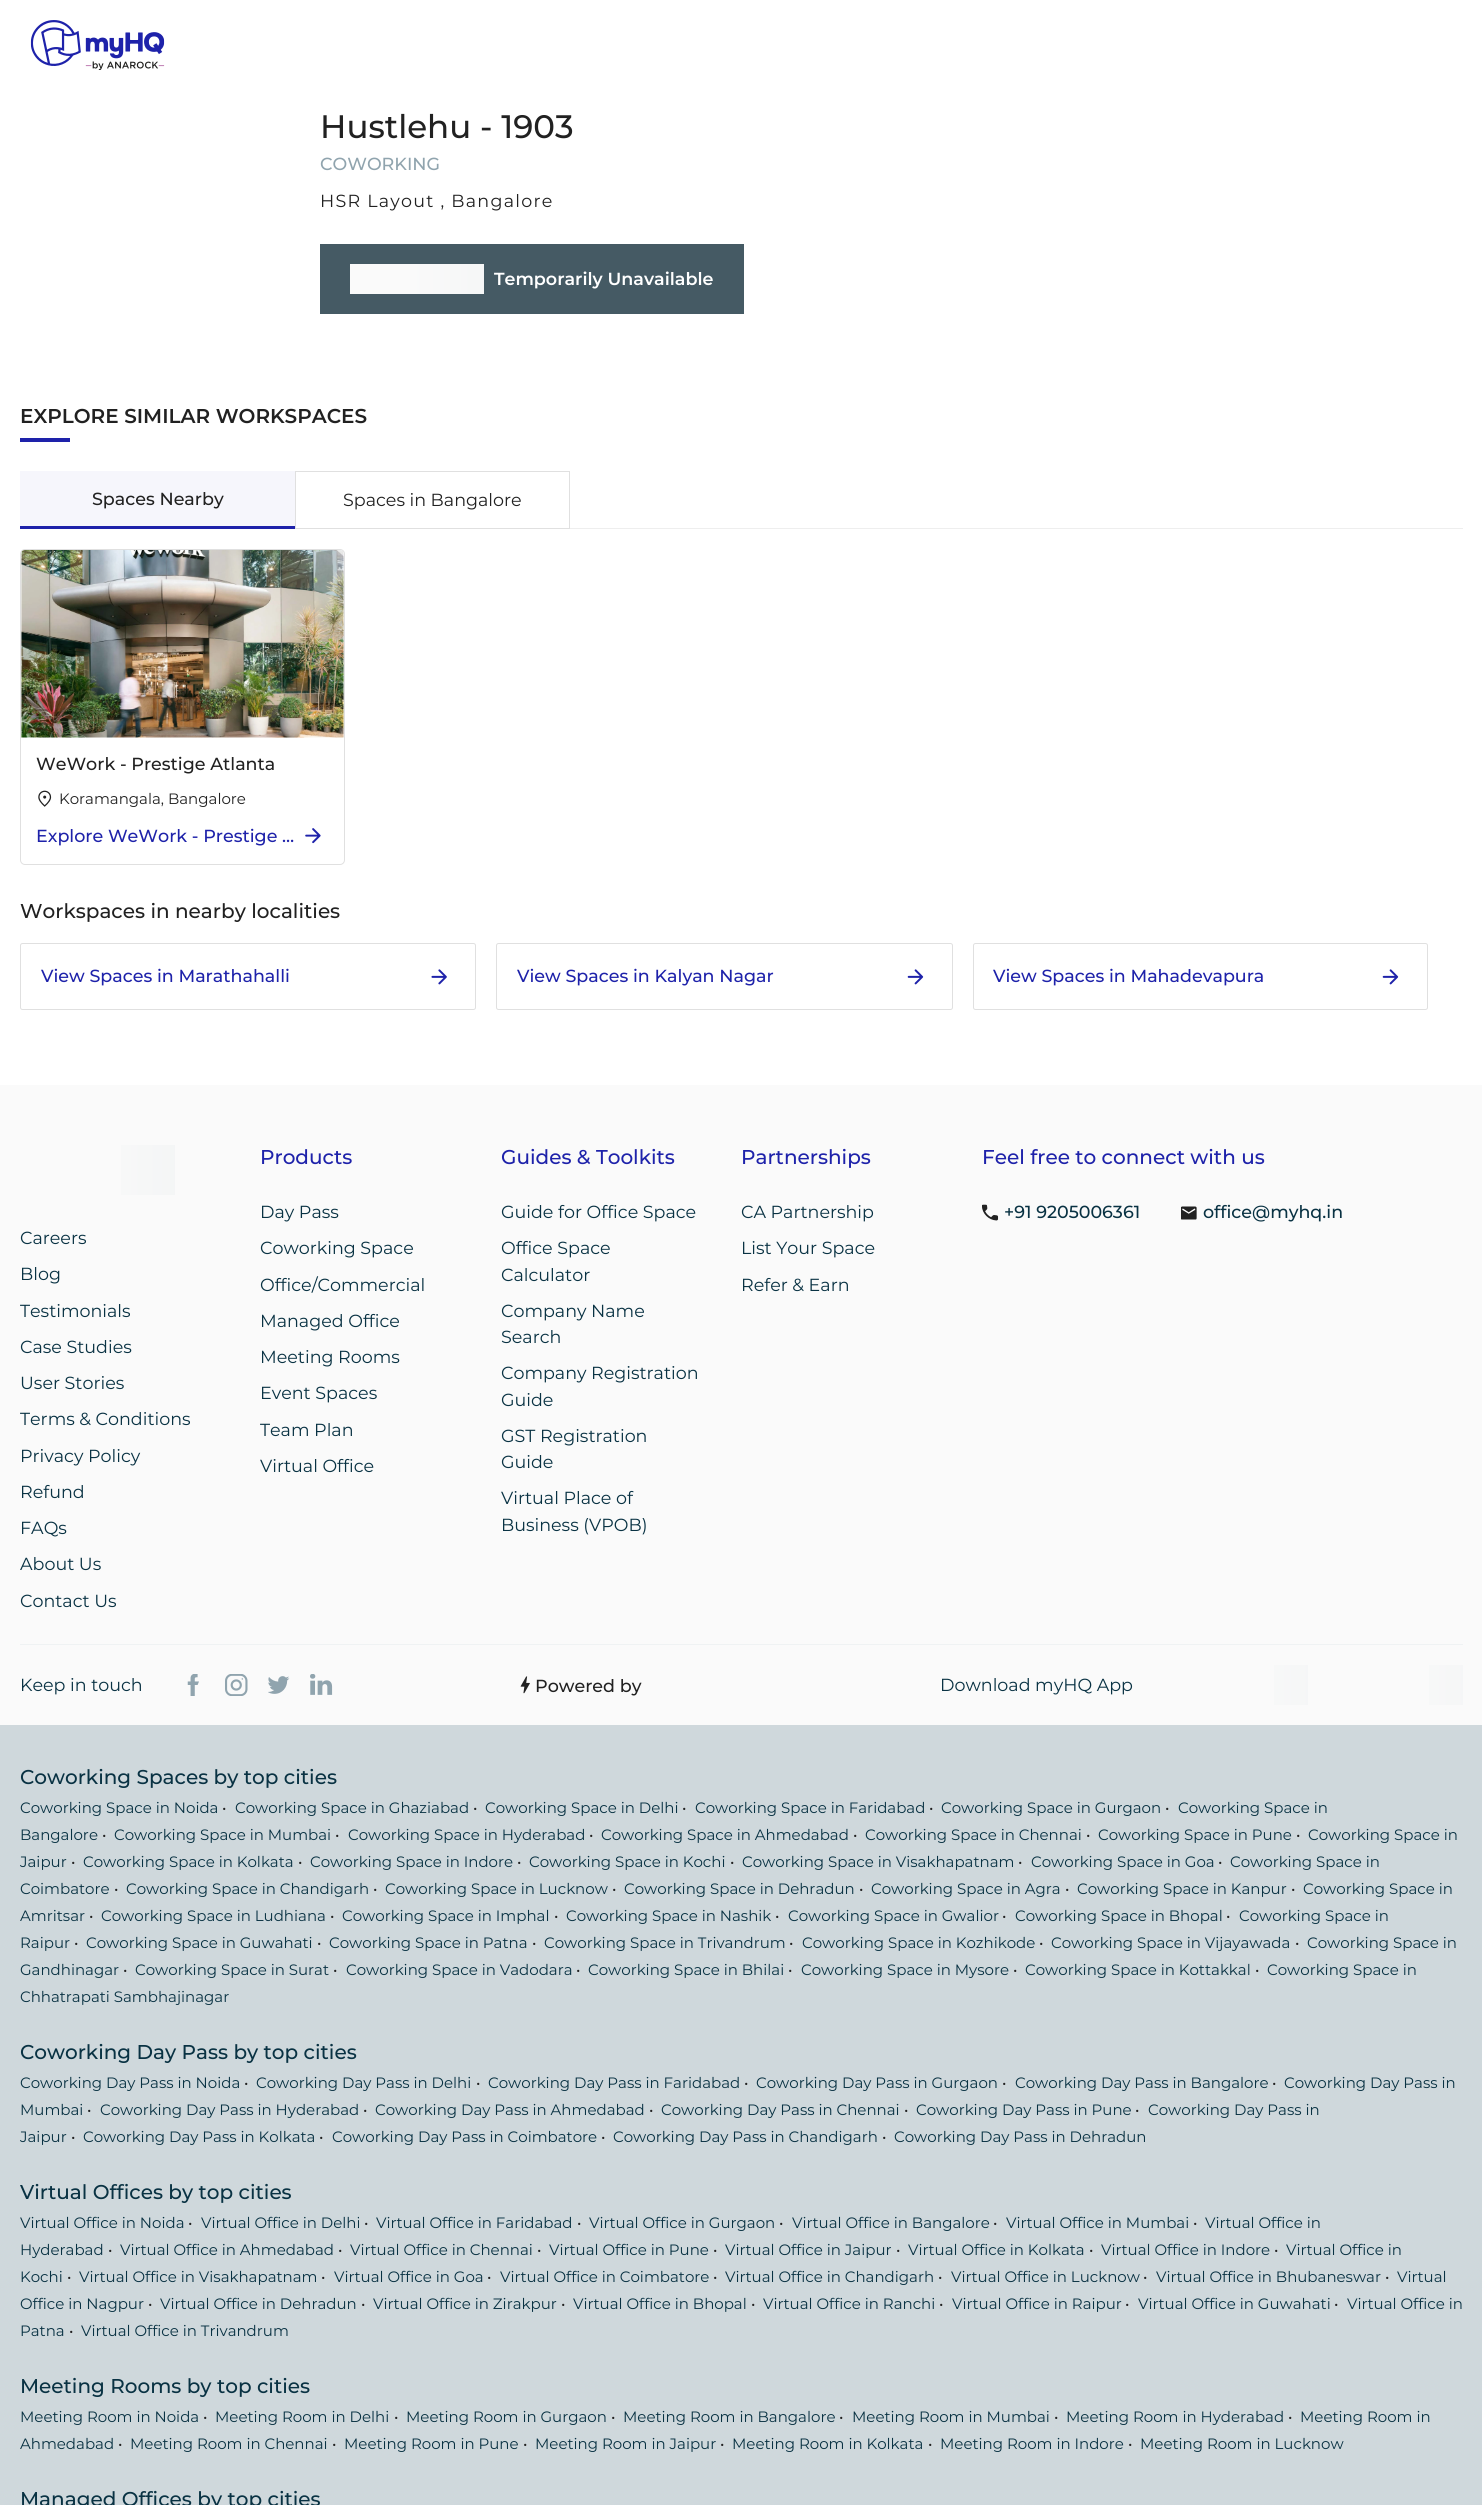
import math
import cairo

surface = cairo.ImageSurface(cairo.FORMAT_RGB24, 1482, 2505)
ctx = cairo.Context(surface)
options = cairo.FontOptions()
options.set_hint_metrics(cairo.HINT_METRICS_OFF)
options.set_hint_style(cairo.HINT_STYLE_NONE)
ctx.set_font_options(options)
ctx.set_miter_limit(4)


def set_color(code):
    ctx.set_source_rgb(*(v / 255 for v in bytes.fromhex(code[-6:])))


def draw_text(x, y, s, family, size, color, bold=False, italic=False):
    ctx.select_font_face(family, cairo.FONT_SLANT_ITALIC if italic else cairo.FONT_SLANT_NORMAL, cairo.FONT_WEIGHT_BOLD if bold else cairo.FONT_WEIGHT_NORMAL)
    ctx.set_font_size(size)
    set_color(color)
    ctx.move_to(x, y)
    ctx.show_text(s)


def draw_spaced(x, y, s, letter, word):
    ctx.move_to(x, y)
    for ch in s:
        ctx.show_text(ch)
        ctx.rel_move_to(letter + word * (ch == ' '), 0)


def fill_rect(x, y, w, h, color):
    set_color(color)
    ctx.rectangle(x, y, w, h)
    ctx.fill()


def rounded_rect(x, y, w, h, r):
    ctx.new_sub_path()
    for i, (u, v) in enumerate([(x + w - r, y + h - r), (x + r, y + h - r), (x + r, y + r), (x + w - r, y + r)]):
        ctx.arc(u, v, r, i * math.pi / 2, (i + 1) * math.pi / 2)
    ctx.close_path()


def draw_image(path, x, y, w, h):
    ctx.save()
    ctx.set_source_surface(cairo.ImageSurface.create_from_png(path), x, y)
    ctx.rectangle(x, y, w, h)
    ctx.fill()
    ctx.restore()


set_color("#ffffff")
ctx.paint()
draw_image("assets/img1.png", 30, 20, 135, 50)
draw_text(320, 138, "Hustlehu - 1903", "Montserrat Medium", 32.5, "#212121")
draw_text(320, 170, "COWORKING", "Montserrat Medium", 17.5, "#90a4ae")
ctx.select_font_face("Montserrat")
set_color("#212121")
draw_spaced(320, 207, "HSR Layout , Bangalore", 1.25, 0)
fill_rect(320, 244, 424, 70, "#455a64")
gradient = cairo.LinearGradient(350, 279, 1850, 279)
gradient.add_color_stop_rgba(0.04, 0.98, 0.98, 0.98, 1)
gradient.add_color_stop_rgba(0.25, 0.906, 0.922, 0.929, 1)
gradient.add_color_stop_rgba(0.36, 0.98, 0.98, 0.98, 1)
ctx.set_source(gradient)
ctx.rectangle(350, 264, 134, 30)
ctx.fill()
draw_text(494, 285, "Temporarily Unavailable", "Montserrat SemiBold", 17.5, "#ffffff")
draw_text(20, 423, "EXPLORE SIMILAR WORKSPACES", "Montserrat SemiBold", 20, "#212121")
fill_rect(20, 438, 50, 4, "#1e22aa")
fill_rect(20, 471, 275, 55, "#f6f6fc")
fill_rect(20, 526, 275, 3, "#1e22aa")
draw_text(92, 505, "Spaces Nearby", "Montserrat Medium", 17.5, "#212121")
ctx.rectangle(295.5, 471.5, 274, 57)
set_color("#e0e0e0")
ctx.set_line_width(1)
ctx.stroke()
draw_text(343, 506, "Spaces in Bangalore", "Montserrat", 17.5, "#212121")
fill_rect(570, 528, 893, 1, "#eeeeee")
rounded_rect(20.5, 549.5, 324, 315, 4.5)
set_color("#e0e0e0")
ctx.stroke()
draw_image("assets/img2.png", 21, 550, 323, 188)
draw_text(36, 770, "WeWork - Prestige Atlanta", "Montserrat Medium", 17.5, "#212121")
draw_image("assets/img3.png", 38, 790, 14, 17)
draw_text(59, 804, "Koramangala, Bangalore", "Montserrat", 15, "#212121")
draw_text(36, 842, "Explore WeWork - Prestige …", "Montserrat Medium", 17.5, "#1e22aa")
draw_image("assets/img4.png", 305, 828, 16, 16)
draw_text(20, 918, "Workspaces in nearby localities", "Montserrat Medium", 20, "#212121")
rounded_rect(20.5, 943.5, 455, 66, 2)
set_color("#e0e0e0")
ctx.stroke()
draw_text(41, 982, "View Spaces in Marathahalli", "Montserrat Medium", 17.5, "#1e22aa")
draw_image("assets/img5.png", 431, 969, 16, 16)
rounded_rect(496.5, 943.5, 456, 66, 2)
set_color("#e0e0e0")
ctx.stroke()
draw_text(517, 982, "View Spaces in Kalyan Nagar", "Montserrat Medium", 17.5, "#1e22aa")
draw_image("assets/img6.png", 907, 969, 17, 16)
rounded_rect(973.5, 943.5, 454, 66, 2)
set_color("#e0e0e0")
ctx.stroke()
draw_text(993, 982, "View Spaces in Mahadevapura", "Montserrat Medium", 17.5, "#1e22aa")
draw_image("assets/img6.png", 1382, 969, 17, 16)
fill_rect(0, 1085, 1482, 640, "#fafafa")
gradient = cairo.LinearGradient(20, 1170, 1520, 1170)
gradient.add_color_stop_rgba(0.04, 0.98, 0.98, 0.98, 1)
gradient.add_color_stop_rgba(0.25, 0.906, 0.922, 0.929, 1)
gradient.add_color_stop_rgba(0.36, 0.98, 0.98, 0.98, 1)
ctx.set_source(gradient)
ctx.rectangle(121, 1145, 54, 50)
ctx.fill()
draw_text(20, 1244, "Careers", "Montserrat", 17.5, "#093243")
draw_text(20, 1280, "Blog", "Montserrat", 17.5, "#093243")
draw_text(20, 1317, "Testimonials", "Montserrat", 17.5, "#093243")
draw_text(20, 1353, "Case Studies", "Montserrat", 17.5, "#093243")
draw_text(20, 1389, "User Stories", "Montserrat", 17.5, "#093243")
draw_text(20, 1425, "Terms & Conditions", "Montserrat", 17.5, "#093243")
draw_text(20, 1462, "Privacy Policy", "Montserrat", 17.5, "#093243")
draw_text(20, 1498, "Refund", "Montserrat", 17.5, "#093243")
draw_text(20, 1534, "FAQs", "Montserrat", 17.5, "#093243")
draw_text(20, 1570, "About Us", "Montserrat", 17.5, "#093243")
draw_text(20, 1607, "Contact Us", "Montserrat", 17.5, "#093243")
draw_text(260, 1164, "Products", "Montserrat Medium", 20, "#1e22aa")
draw_text(260, 1218, "Day Pass", "Montserrat", 17.5, "#093243")
draw_text(260, 1254, "Coworking Space", "Montserrat", 17.5, "#093243")
draw_text(260, 1291, "Office/Commercial", "Montserrat", 17.5, "#093243")
draw_text(260, 1327, "Managed Office", "Montserrat", 17.5, "#093243")
draw_text(260, 1363, "Meeting Rooms", "Montserrat", 17.5, "#093243")
draw_text(260, 1399, "Event Spaces", "Montserrat", 17.5, "#093243")
draw_text(260, 1436, "Team Plan", "Montserrat", 17.5, "#093243")
draw_text(260, 1472, "Virtual Office", "Montserrat", 17.5, "#093243")
draw_text(501, 1164, "Guides & Toolkits", "Montserrat Medium", 20, "#1e22aa")
draw_text(501, 1218, "Guide for Office Space", "Montserrat", 17.5, "#093243")
draw_text(501, 1254, "Office Space", "Montserrat", 17.5, "#093243")
draw_text(501, 1281, "Calculator", "Montserrat", 17.5, "#093243")
draw_text(501, 1317, "Company Name", "Montserrat", 17.5, "#093243")
draw_text(501, 1343, "Search", "Montserrat", 17.5, "#093243")
draw_text(501, 1379, "Company Registration", "Montserrat", 17.5, "#093243")
draw_text(501, 1406, "Guide", "Montserrat", 17.5, "#093243")
draw_text(501, 1442, "GST Registration", "Montserrat", 17.5, "#093243")
draw_text(501, 1468, "Guide", "Montserrat", 17.5, "#093243")
draw_text(501, 1504, "Virtual Place of", "Montserrat", 17.5, "#093243")
draw_text(501, 1531, "Business (VPOB)", "Montserrat", 17.5, "#093243")
draw_text(741, 1164, "Partnerships", "Montserrat Medium", 20, "#1e22aa")
draw_text(741, 1218, "CA Partnership", "Montserrat", 17.5, "#093243")
draw_text(741, 1254, "List Your Space", "Montserrat", 17.5, "#093243")
draw_text(741, 1291, "Refer & Earn", "Montserrat", 17.5, "#093243")
draw_text(982, 1164, "Feel free to connect with us", "Montserrat Medium", 20, "#1e22aa")
draw_image("assets/img7.png", 982, 1204, 17, 17)
draw_text(1004, 1218, "+91 9205006361", "Montserrat Medium", 17.5, "#093243")
draw_image("assets/img8.png", 1181, 1206, 16, 14)
draw_text(1203, 1218, "office@myhq.in", "Montserrat Medium", 17.5, "#093243")
fill_rect(20, 1644, 1443, 1, "#eff2f3")
draw_text(20, 1691, "Keep in touch", "Montserrat", 17.5, "#093243")
draw_image("assets/img9.png", 187, 1674, 12, 22)
draw_image("assets/img10.png", 225, 1674, 23, 22)
draw_image("assets/img11.png", 268, 1676, 22, 18)
draw_image("assets/img12.png", 310, 1674, 23, 21)
draw_image("assets/img13.png", 520, 1676, 10, 18)
draw_text(535, 1692, "Powered by", "Montserrat Medium", 17.5, "#212121")
draw_text(940, 1691, "Download myHQ App", "Montserrat", 17.5, "#093243")
gradient = cairo.LinearGradient(1173, 1685, 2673, 1685)
gradient.add_color_stop_rgba(0.04, 0.98, 0.98, 0.98, 1)
gradient.add_color_stop_rgba(0.25, 0.906, 0.922, 0.929, 1)
gradient.add_color_stop_rgba(0.36, 0.98, 0.98, 0.98, 1)
ctx.set_source(gradient)
ctx.rectangle(1274, 1665, 34, 40)
ctx.fill()
gradient = cairo.LinearGradient(1328, 1685, 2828, 1685)
gradient.add_color_stop_rgba(0.04, 0.98, 0.98, 0.98, 1)
gradient.add_color_stop_rgba(0.25, 0.906, 0.922, 0.929, 1)
gradient.add_color_stop_rgba(0.36, 0.98, 0.98, 0.98, 1)
ctx.set_source(gradient)
ctx.rectangle(1429, 1665, 34, 40)
ctx.fill()
fill_rect(0, 1725, 1482, 780, "#cfd8dc")
draw_text(20, 1784, "Coworking Spaces by top cities", "Montserrat Medium", 20, "#093243")
draw_text(20, 1813, "Coworking Space in Noida", "Montserrat", 15, "#093243")
draw_text(222, 1813, "•", "Montserrat", 15, "#212121")
draw_text(235, 1813, "Coworking Space in Ghaziabad", "Montserrat", 15, "#093243")
draw_text(473, 1813, "•", "Montserrat", 15, "#212121")
draw_text(485, 1813, "Coworking Space in Delhi", "Montserrat", 15, "#093243")
draw_text(682, 1813, "•", "Montserrat", 15, "#212121")
draw_text(695, 1813, "Coworking Space in Faridabad", "Montserrat", 15, "#093243")
draw_text(929, 1813, "•", "Montserrat", 15, "#212121")
draw_text(941, 1813, "Coworking Space in Gurgaon", "Montserrat", 15, "#093243")
draw_text(1165, 1813, "•", "Montserrat", 15, "#212121")
draw_text(1178, 1813, "Coworking Space in", "Montserrat", 15, "#093243")
draw_text(20, 1840, "Bangalore", "Montserrat", 15, "#093243")
draw_text(102, 1840, "•", "Montserrat", 15, "#212121")
draw_text(114, 1840, "Coworking Space in Mumbai", "Montserrat", 15, "#093243")
draw_text(335, 1840, "•", "Montserrat", 15, "#212121")
draw_text(348, 1840, "Coworking Space in Hyderabad", "Montserrat", 15, "#093243")
draw_text(589, 1840, "•", "Montserrat", 15, "#212121")
draw_text(601, 1840, "Coworking Space in Ahmedabad", "Montserrat", 15, "#093243")
draw_text(853, 1840, "•", "Montserrat", 15, "#212121")
draw_text(865, 1840, "Coworking Space in Chennai", "Montserrat", 15, "#093243")
draw_text(1086, 1840, "•", "Montserrat", 15, "#212121")
draw_text(1098, 1840, "Coworking Space in Pune", "Montserrat", 15, "#093243")
draw_text(1296, 1840, "•", "Montserrat", 15, "#212121")
draw_text(1308, 1840, "Coworking Space in", "Montserrat", 15, "#093243")
draw_text(20, 1867, "Jaipur", "Montserrat", 15, "#093243")
draw_text(71, 1867, "•", "Montserrat", 15, "#212121")
draw_text(83, 1867, "Coworking Space in Kolkata", "Montserrat", 15, "#093243")
draw_text(298, 1867, "•", "Montserrat", 15, "#212121")
draw_text(310, 1867, "Coworking Space in Indore", "Montserrat", 15, "#093243")
draw_text(517, 1867, "•", "Montserrat", 15, "#212121")
draw_text(529, 1867, "Coworking Space in Kochi", "Montserrat", 15, "#093243")
draw_text(730, 1867, "•", "Montserrat", 15, "#212121")
draw_text(742, 1867, "Coworking Space in Visakhapatnam", "Montserrat", 15, "#093243")
draw_text(1018, 1867, "•", "Montserrat", 15, "#212121")
draw_text(1031, 1867, "Coworking Space in Goa", "Montserrat", 15, "#093243")
draw_text(1218, 1867, "•", "Montserrat", 15, "#212121")
draw_text(1230, 1867, "Coworking Space in", "Montserrat", 15, "#093243")
draw_text(20, 1894, "Coimbatore", "Montserrat", 15, "#093243")
draw_text(114, 1894, "•", "Montserrat", 15, "#212121")
draw_text(126, 1894, "Coworking Space in Chandigarh", "Montserrat", 15, "#093243")
draw_text(373, 1894, "•", "Montserrat", 15, "#212121")
draw_text(385, 1894, "Coworking Space in Lucknow", "Montserrat", 15, "#093243")
draw_text(612, 1894, "•", "Montserrat", 15, "#212121")
draw_text(624, 1894, "Coworking Space in Dehradun", "Montserrat", 15, "#093243")
draw_text(859, 1894, "•", "Montserrat", 15, "#212121")
draw_text(871, 1894, "Coworking Space in Agra", "Montserrat", 15, "#093243")
draw_text(1065, 1894, "•", "Montserrat", 15, "#212121")
draw_text(1077, 1894, "Coworking Space in Kanpur", "Montserrat", 15, "#093243")
draw_text(1291, 1894, "•", "Montserrat", 15, "#212121")
draw_text(1303, 1894, "Coworking Space in", "Montserrat", 15, "#093243")
draw_text(20, 1921, "Amritsar", "Montserrat", 15, "#093243")
draw_text(89, 1921, "•", "Montserrat", 15, "#212121")
draw_text(101, 1921, "Coworking Space in Ludhiana", "Montserrat", 15, "#093243")
draw_text(330, 1921, "•", "Montserrat", 15, "#212121")
draw_text(342, 1921, "Coworking Space in Imphal", "Montserrat", 15, "#093243")
draw_text(554, 1921, "•", "Montserrat", 15, "#212121")
draw_text(566, 1921, "Coworking Space in Nashik", "Montserrat", 15, "#093243")
draw_text(775, 1921, "•", "Montserrat", 15, "#212121")
draw_text(788, 1921, "Coworking Space in Gwalior", "Montserrat", 15, "#093243")
draw_text(1002, 1921, "•", "Montserrat", 15, "#212121")
draw_text(1015, 1921, "Coworking Space in Bhopal", "Montserrat", 15, "#093243")
draw_text(1226, 1921, "•", "Montserrat", 15, "#212121")
draw_text(1239, 1921, "Coworking Space in", "Montserrat", 15, "#093243")
draw_text(20, 1948, "Raipur", "Montserrat", 15, "#093243")
draw_text(74, 1948, "•", "Montserrat", 15, "#212121")
draw_text(86, 1948, "Coworking Space in Guwahati", "Montserrat", 15, "#093243")
draw_text(317, 1948, "•", "Montserrat", 15, "#212121")
draw_text(329, 1948, "Coworking Space in Patna", "Montserrat", 15, "#093243")
draw_text(532, 1948, "•", "Montserrat", 15, "#212121")
draw_text(544, 1948, "Coworking Space in Trivandrum", "Montserrat", 15, "#093243")
draw_text(789, 1948, "•", "Montserrat", 15, "#212121")
draw_text(802, 1948, "Coworking Space in Kozhikode", "Montserrat", 15, "#093243")
draw_text(1039, 1948, "•", "Montserrat", 15, "#212121")
draw_text(1051, 1948, "Coworking Space in Vijayawada", "Montserrat", 15, "#093243")
draw_text(1295, 1948, "•", "Montserrat", 15, "#212121")
draw_text(1307, 1948, "Coworking Space in", "Montserrat", 15, "#093243")
draw_text(20, 1975, "Gandhinagar", "Montserrat", 15, "#093243")
draw_text(123, 1975, "•", "Montserrat", 15, "#212121")
draw_text(135, 1975, "Coworking Space in Surat", "Montserrat", 15, "#093243")
draw_text(333, 1975, "•", "Montserrat", 15, "#212121")
draw_text(346, 1975, "Coworking Space in Vadodara", "Montserrat", 15, "#093243")
draw_text(576, 1975, "•", "Montserrat", 15, "#212121")
draw_text(588, 1975, "Coworking Space in Bhilai", "Montserrat", 15, "#093243")
draw_text(788, 1975, "•", "Montserrat", 15, "#212121")
draw_text(801, 1975, "Coworking Space in Mysore", "Montserrat", 15, "#093243")
draw_text(1013, 1975, "•", "Montserrat", 15, "#212121")
draw_text(1025, 1975, "Coworking Space in Kottakkal", "Montserrat", 15, "#093243")
draw_text(1255, 1975, "•", "Montserrat", 15, "#212121")
draw_text(1267, 1975, "Coworking Space in", "Montserrat", 15, "#093243")
draw_text(20, 2002, "Chhatrapati Sambhajinagar", "Montserrat", 15, "#093243")
draw_text(20, 2059, "Coworking Day Pass by top cities", "Montserrat Medium", 20, "#093243")
draw_text(20, 2088, "Coworking Day Pass in Noida", "Montserrat", 15, "#093243")
draw_text(244, 2088, "•", "Montserrat", 15, "#212121")
draw_text(256, 2088, "Coworking Day Pass in Delhi", "Montserrat", 15, "#093243")
draw_text(476, 2088, "•", "Montserrat", 15, "#212121")
draw_text(488, 2088, "Coworking Day Pass in Faridabad", "Montserrat", 15, "#093243")
draw_text(744, 2088, "•", "Montserrat", 15, "#212121")
draw_text(756, 2088, "Coworking Day Pass in Gurgaon", "Montserrat", 15, "#093243")
draw_text(1002, 2088, "•", "Montserrat", 15, "#212121")
draw_text(1015, 2088, "Coworking Day Pass in Bangalore", "Montserrat", 15, "#093243")
draw_text(1272, 2088, "•", "Montserrat", 15, "#212121")
draw_text(1284, 2088, "Coworking Day Pass in", "Montserrat", 15, "#093243")
draw_text(20, 2115, "Mumbai", "Montserrat", 15, "#093243")
draw_text(87, 2115, "•", "Montserrat", 15, "#212121")
draw_text(100, 2115, "Coworking Day Pass in Hyderabad", "Montserrat", 15, "#093243")
draw_text(363, 2115, "•", "Montserrat", 15, "#212121")
draw_text(375, 2115, "Coworking Day Pass in Ahmedabad", "Montserrat", 15, "#093243")
draw_text(649, 2115, "•", "Montserrat", 15, "#212121")
draw_text(661, 2115, "Coworking Day Pass in Chennai", "Montserrat", 15, "#093243")
draw_text(904, 2115, "•", "Montserrat", 15, "#212121")
draw_text(916, 2115, "Coworking Day Pass in Pune", "Montserrat", 15, "#093243")
draw_text(1135, 2115, "•", "Montserrat", 15, "#212121")
draw_text(1148, 2115, "Coworking Day Pass in", "Montserrat", 15, "#093243")
draw_text(20, 2142, "Jaipur", "Montserrat", 15, "#093243")
draw_text(71, 2142, "•", "Montserrat", 15, "#212121")
draw_text(83, 2142, "Coworking Day Pass in Kolkata", "Montserrat", 15, "#093243")
draw_text(319, 2142, "•", "Montserrat", 15, "#212121")
draw_text(332, 2142, "Coworking Day Pass in Coimbatore", "Montserrat", 15, "#093243")
draw_text(601, 2142, "•", "Montserrat", 15, "#212121")
draw_text(613, 2142, "Coworking Day Pass in Chandigarh", "Montserrat", 15, "#093243")
draw_text(882, 2142, "•", "Montserrat", 15, "#212121")
draw_text(894, 2142, "Coworking Day Pass in Dehradun", "Montserrat", 15, "#093243")
draw_text(20, 2199, "Virtual Offices by top cities", "Montserrat Medium", 20, "#093243")
draw_text(20, 2228, "Virtual Office in Noida", "Montserrat", 15, "#093243")
draw_text(188, 2228, "•", "Montserrat", 15, "#212121")
draw_text(201, 2228, "Virtual Office in Delhi", "Montserrat", 15, "#093243")
draw_text(364, 2228, "•", "Montserrat", 15, "#212121")
draw_text(376, 2228, "Virtual Office in Faridabad", "Montserrat", 15, "#093243")
draw_text(577, 2228, "•", "Montserrat", 15, "#212121")
draw_text(589, 2228, "Virtual Office in Gurgaon", "Montserrat", 15, "#093243")
draw_text(779, 2228, "•", "Montserrat", 15, "#212121")
draw_text(792, 2228, "Virtual Office in Bangalore", "Montserrat", 15, "#093243")
draw_text(993, 2228, "•", "Montserrat", 15, "#212121")
draw_text(1006, 2228, "Virtual Office in Mumbai", "Montserrat", 15, "#093243")
draw_text(1193, 2228, "•", "Montserrat", 15, "#212121")
draw_text(1205, 2228, "Virtual Office in", "Montserrat", 15, "#093243")
draw_text(20, 2255, "Hyderabad", "Montserrat", 15, "#093243")
draw_text(108, 2255, "•", "Montserrat", 15, "#212121")
draw_text(120, 2255, "Virtual Office in Ahmedabad", "Montserrat", 15, "#093243")
draw_text(338, 2255, "•", "Montserrat", 15, "#212121")
draw_text(350, 2255, "Virtual Office in Chennai", "Montserrat", 15, "#093243")
draw_text(537, 2255, "•", "Montserrat", 15, "#212121")
draw_text(549, 2255, "Virtual Office in Pune", "Montserrat", 15, "#093243")
draw_text(713, 2255, "•", "Montserrat", 15, "#212121")
draw_text(725, 2255, "Virtual Office in Jaipur", "Montserrat", 15, "#093243")
draw_text(896, 2255, "•", "Montserrat", 15, "#212121")
draw_text(908, 2255, "Virtual Office in Kolkata", "Montserrat", 15, "#093243")
draw_text(1089, 2255, "•", "Montserrat", 15, "#212121")
draw_text(1101, 2255, "Virtual Office in Indore", "Montserrat", 15, "#093243")
draw_text(1274, 2255, "•", "Montserrat", 15, "#212121")
draw_text(1286, 2255, "Virtual Office in", "Montserrat", 15, "#093243")
draw_text(20, 2282, "Kochi", "Montserrat", 15, "#093243")
draw_text(67, 2282, "•", "Montserrat", 15, "#212121")
draw_text(79, 2282, "Virtual Office in Visakhapatnam", "Montserrat", 15, "#093243")
draw_text(321, 2282, "•", "Montserrat", 15, "#212121")
draw_text(334, 2282, "Virtual Office in Goa", "Montserrat", 15, "#093243")
draw_text(487, 2282, "•", "Montserrat", 15, "#212121")
draw_text(500, 2282, "Virtual Office in Coimbatore", "Montserrat", 15, "#093243")
draw_text(713, 2282, "•", "Montserrat", 15, "#212121")
draw_text(725, 2282, "Virtual Office in Chandigarh", "Montserrat", 15, "#093243")
draw_text(938, 2282, "•", "Montserrat", 15, "#212121")
draw_text(951, 2282, "Virtual Office in Lucknow", "Montserrat", 15, "#093243")
draw_text(1143, 2282, "•", "Montserrat", 15, "#212121")
draw_text(1156, 2282, "Virtual Office in Bhubaneswar", "Montserrat", 15, "#093243")
draw_text(1385, 2282, "•", "Montserrat", 15, "#212121")
draw_text(1397, 2282, "Virtual", "Montserrat", 15, "#093243")
draw_text(20, 2309, "Office in Nagpur", "Montserrat", 15, "#093243")
draw_text(148, 2309, "•", "Montserrat", 15, "#212121")
draw_text(160, 2309, "Virtual Office in Dehradun", "Montserrat", 15, "#093243")
draw_text(361, 2309, "•", "Montserrat", 15, "#212121")
draw_text(373, 2309, "Virtual Office in Zirakpur", "Montserrat", 15, "#093243")
draw_text(561, 2309, "•", "Montserrat", 15, "#212121")
draw_text(573, 2309, "Virtual Office in Bhopal", "Montserrat", 15, "#093243")
draw_text(751, 2309, "•", "Montserrat", 15, "#212121")
draw_text(763, 2309, "Virtual Office in Ranchi", "Montserrat", 15, "#093243")
draw_text(939, 2309, "•", "Montserrat", 15, "#212121")
draw_text(952, 2309, "Virtual Office in Raipur", "Montserrat", 15, "#093243")
draw_text(1125, 2309, "•", "Montserrat", 15, "#212121")
draw_text(1138, 2309, "Virtual Office in Guwahati", "Montserrat", 15, "#093243")
draw_text(1334, 2309, "•", "Montserrat", 15, "#212121")
draw_text(1347, 2309, "Virtual Office in", "Montserrat", 15, "#093243")
draw_text(20, 2336, "Patna", "Montserrat", 15, "#093243")
draw_text(69, 2336, "•", "Montserrat", 15, "#212121")
draw_text(81, 2336, "Virtual Office in Trivandrum", "Montserrat", 15, "#093243")
draw_text(20, 2393, "Meeting Rooms by top cities", "Montserrat Medium", 20, "#093243")
draw_text(20, 2422, "Meeting Room in Noida", "Montserrat", 15, "#093243")
draw_text(203, 2422, "•", "Montserrat", 15, "#212121")
draw_text(215, 2422, "Meeting Room in Delhi", "Montserrat", 15, "#093243")
draw_text(394, 2422, "•", "Montserrat", 15, "#212121")
draw_text(406, 2422, "Meeting Room in Gurgaon", "Montserrat", 15, "#093243")
draw_text(611, 2422, "•", "Montserrat", 15, "#212121")
draw_text(623, 2422, "Meeting Room in Bangalore", "Montserrat", 15, "#093243")
draw_text(839, 2422, "•", "Montserrat", 15, "#212121")
draw_text(852, 2422, "Meeting Room in Mumbai", "Montserrat", 15, "#093243")
draw_text(1054, 2422, "•", "Montserrat", 15, "#212121")
draw_text(1066, 2422, "Meeting Room in Hyderabad", "Montserrat", 15, "#093243")
draw_text(1288, 2422, "•", "Montserrat", 15, "#212121")
draw_text(1300, 2422, "Meeting Room in", "Montserrat", 15, "#093243")
draw_text(20, 2449, "Ahmedabad", "Montserrat", 15, "#093243")
draw_text(118, 2449, "•", "Montserrat", 15, "#212121")
draw_text(130, 2449, "Meeting Room in Chennai", "Montserrat", 15, "#093243")
draw_text(332, 2449, "•", "Montserrat", 15, "#212121")
draw_text(344, 2449, "Meeting Room in Pune", "Montserrat", 15, "#093243")
draw_text(523, 2449, "•", "Montserrat", 15, "#212121")
draw_text(535, 2449, "Meeting Room in Jaipur", "Montserrat", 15, "#093243")
draw_text(720, 2449, "•", "Montserrat", 15, "#212121")
draw_text(732, 2449, "Meeting Room in Kolkata", "Montserrat", 15, "#093243")
draw_text(928, 2449, "•", "Montserrat", 15, "#212121")
draw_text(940, 2449, "Meeting Room in Indore", "Montserrat", 15, "#093243")
draw_text(1128, 2449, "•", "Montserrat", 15, "#212121")
draw_text(1140, 2449, "Meeting Room in Lucknow", "Montserrat", 15, "#093243")
draw_text(20, 2506, "Managed Offices by top cities", "Montserrat Medium", 20, "#093243")
surface.write_to_png("output.png")
